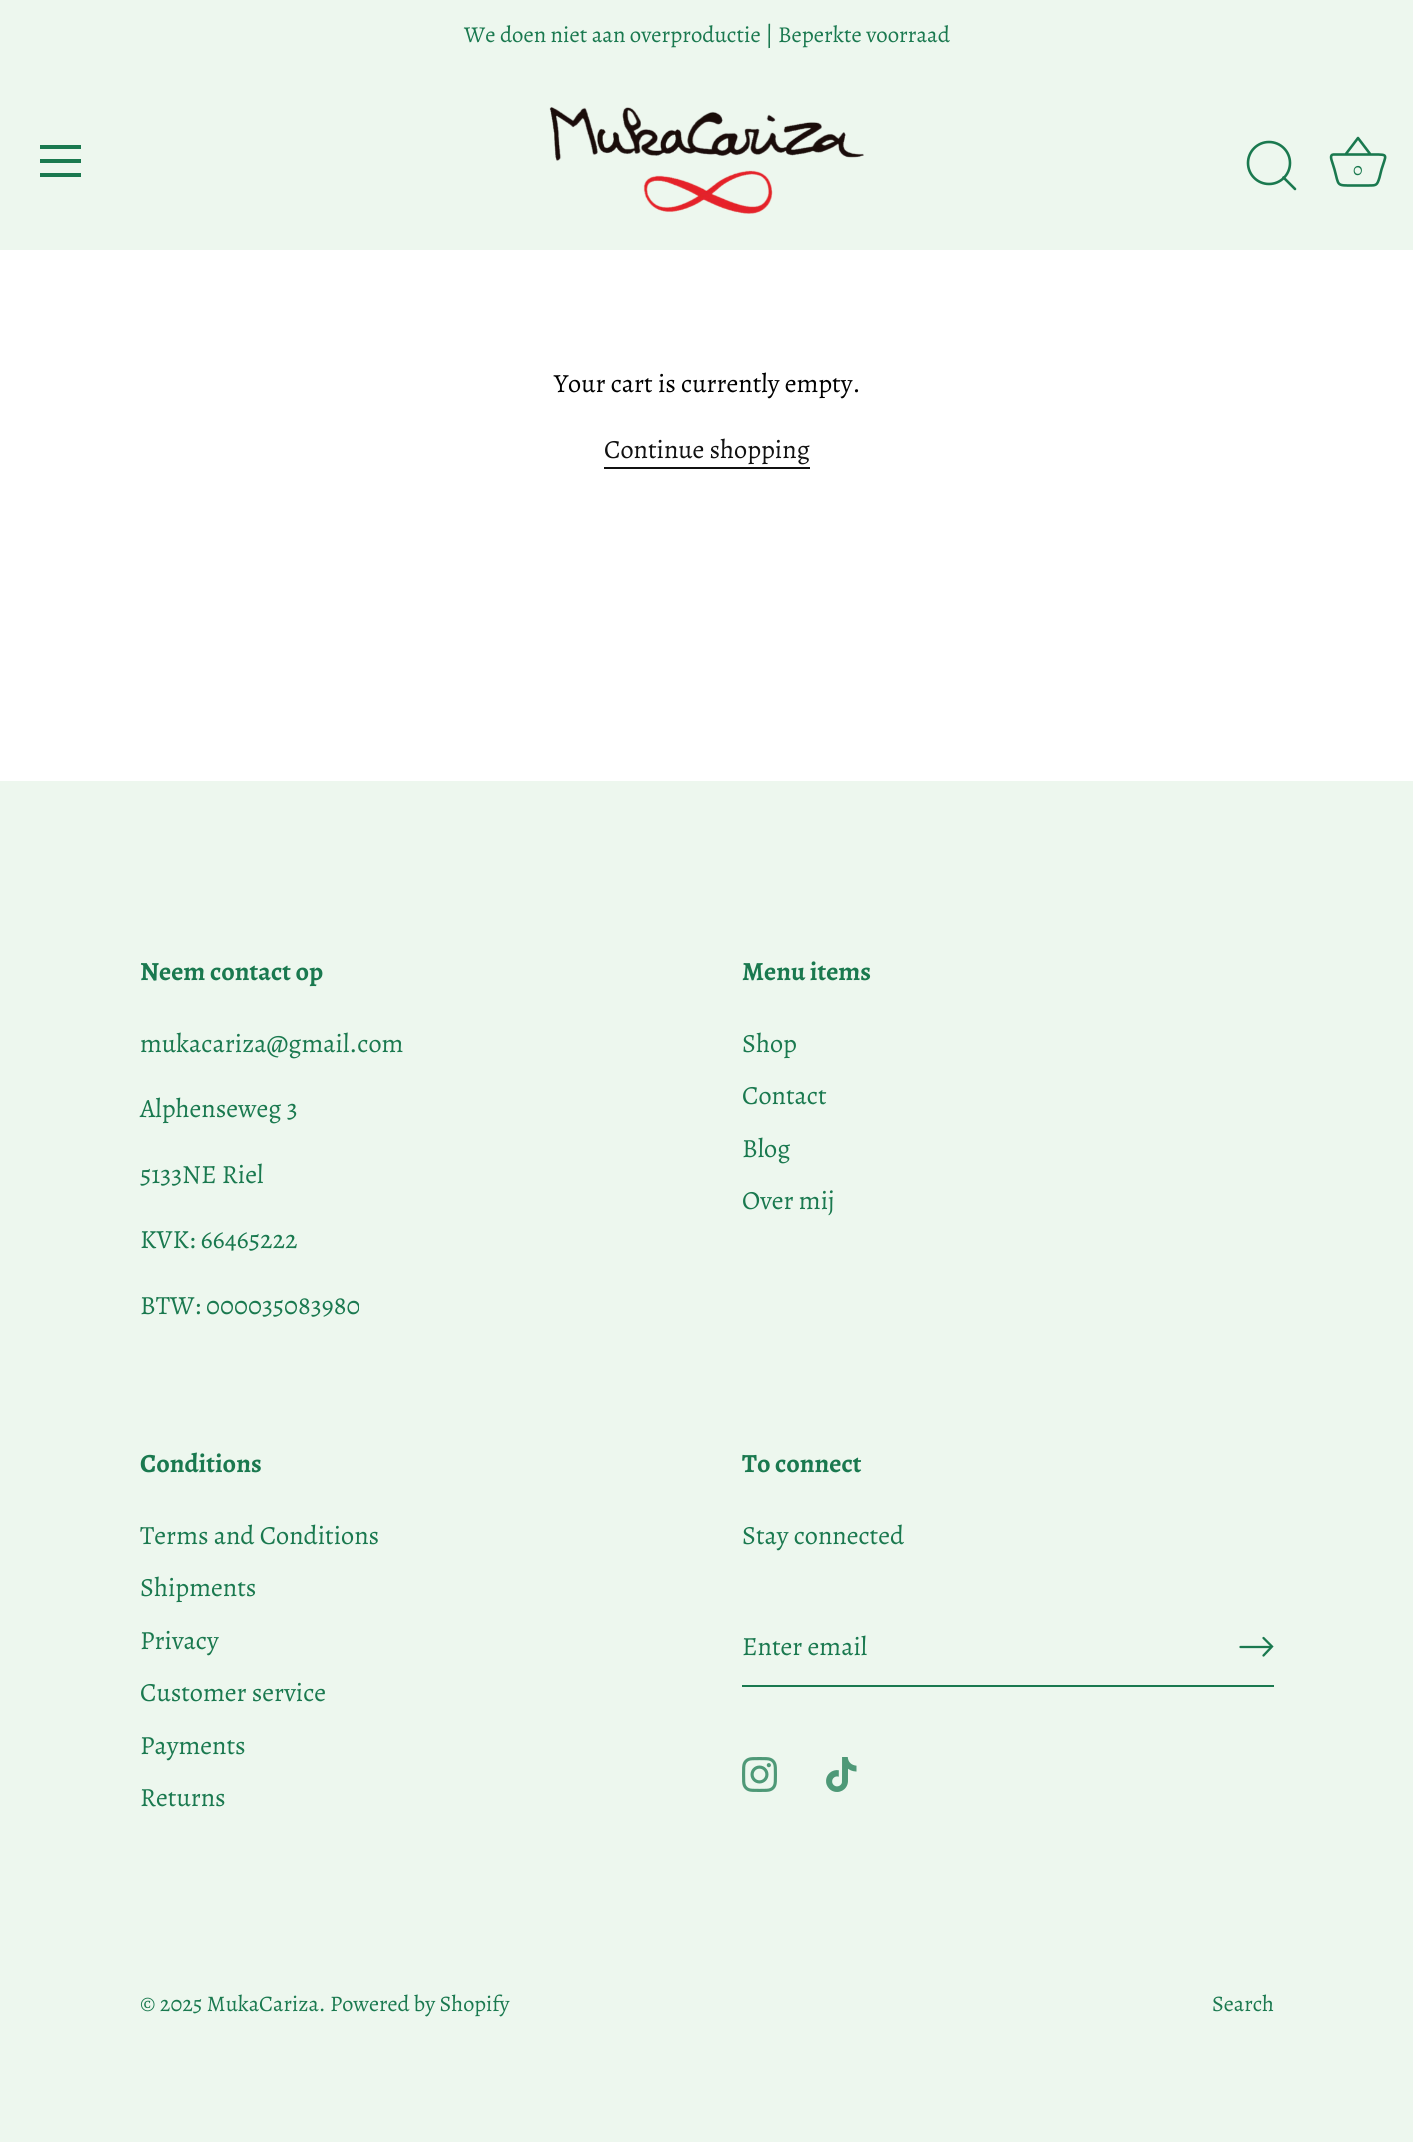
import math
import cairo

surface = cairo.ImageSurface(cairo.FORMAT_RGB24, 1413, 2142)
ctx = cairo.Context(surface)
options = cairo.FontOptions()
options.set_hint_metrics(cairo.HINT_METRICS_OFF)
options.set_hint_style(cairo.HINT_STYLE_NONE)
ctx.set_font_options(options)
ctx.set_miter_limit(4)


def set_color(code):
    ctx.set_source_rgb(*(v / 255 for v in bytes.fromhex(code[-6:])))


def draw_text(x, y, s, family, size, color, bold=False, italic=False):
    ctx.select_font_face(family, cairo.FONT_SLANT_ITALIC if italic else cairo.FONT_SLANT_NORMAL, cairo.FONT_WEIGHT_BOLD if bold else cairo.FONT_WEIGHT_NORMAL)
    ctx.set_font_size(size)
    set_color(color)
    ctx.move_to(x, y)
    ctx.show_text(s)


def fill_rect(x, y, w, h, color):
    set_color(color)
    ctx.rectangle(x, y, w, h)
    ctx.fill()


def draw_image(path, x, y, w, h):
    ctx.save()
    ctx.set_source_surface(cairo.ImageSurface.create_from_png(path), x, y)
    ctx.rectangle(x, y, w, h)
    ctx.fill()
    ctx.restore()


set_color("#ffffff")
ctx.paint()
fill_rect(0, 0, 1413, 250, "#edf7ee")
draw_text(464, 42, "We doen niet aan overproductie | Beperkte voorraad", "Alegreya", 22.75, "#1a794f")
fill_rect(40, 145, 41, 4, "#1a794f")
fill_rect(40, 159, 41, 4, "#1a794f")
fill_rect(40, 173, 41, 4, "#1a794f")
draw_image("assets/img1.png", 549, 107, 315, 107)
ctx.arc(1269, 163, 21, 0, 2 * math.pi)
ctx.set_line_width(2.6)
ctx.stroke()
ctx.new_path()
ctx.move_to(1295, 189)
ctx.line_to(1283.5, 177.5)
ctx.set_line_cap(cairo.LINE_CAP_ROUND)
ctx.set_line_join(cairo.LINE_JOIN_ROUND)
ctx.stroke()
ctx.new_path()
ctx.move_to(1333.5, 154.5)
ctx.curve_to(1329.5, 154.5, 1331.5, 160, 1332, 161.5)
ctx.line_to(1334.5, 169.5)
ctx.curve_to(1339, 186, 1336, 185.5, 1353, 185.5)
ctx.line_to(1368, 185.5)
ctx.curve_to(1376.5, 185.5, 1377, 185.5, 1379.5, 177.5)
ctx.line_to(1381.5, 169.5)
ctx.curve_to(1386, 154.5, 1389, 154.5, 1374, 154.5)
ctx.line_to(1333.5, 154.5)
ctx.move_to(1345.5, 154.5)
ctx.line_to(1358, 138)
ctx.line_to(1370.5, 154.5)
ctx.set_line_cap(cairo.LINE_CAP_BUTT)
ctx.stroke()
draw_text(1353, 175, "0", "Alegreya", 18, "#1a794f")
draw_text(554, 392, "Your cart is currently empty.", "Alegreya", 26.25, "#000000")
draw_text(604, 458, "Continue shopping", "Alegreya", 26.25, "#111111")
fill_rect(604, 467, 206, 2, "#111111")
fill_rect(0, 781, 1413, 1361, "#edf7ee")
draw_text(140, 980, "Neem contact op", "Alegreya", 26.25, "#1a794f", bold=True)
draw_text(140, 1052, "mukacariza@gmail.com", "Alegreya", 26.25, "#1a794f")
draw_text(140, 1117, "Alphenseweg 3", "Alegreya", 26.25, "#1a794f")
draw_text(140, 1183, "5133NE Riel", "Alegreya", 26.25, "#1a794f")
draw_text(140, 1248, "KVK: 66465222", "Alegreya", 26.25, "#1a794f")
draw_text(140, 1314, "BTW: 000035083980", "Alegreya", 26.25, "#1a794f")
draw_text(742, 980, "Menu items", "Alegreya", 26.25, "#1a794f", bold=True)
draw_text(742, 1052, "Shop", "Alegreya", 26.25, "#1a794f")
draw_text(742, 1104, "Contact", "Alegreya", 26.25, "#1a794f")
draw_text(742, 1157, "Blog", "Alegreya", 26.25, "#1a794f")
draw_text(742, 1209, "Over mij", "Alegreya", 26.25, "#1a794f")
draw_text(140, 1472, "Conditions", "Alegreya", 26.25, "#1a794f", bold=True)
draw_text(140, 1544, "Terms and Conditions", "Alegreya", 26.25, "#1a794f")
draw_text(140, 1596, "Shipments", "Alegreya", 26.25, "#1a794f")
draw_text(140, 1649, "Privacy", "Alegreya", 26.25, "#1a794f")
draw_text(140, 1701, "Customer service", "Alegreya", 26.25, "#1a794f")
draw_text(140, 1754, "Payments", "Alegreya", 26.25, "#1a794f")
draw_text(140, 1806, "Returns", "Alegreya", 26.25, "#1a794f")
draw_text(742, 1472, "To connect", "Alegreya", 26.25, "#1a794f", bold=True)
draw_text(742, 1544, "Stay connected", "Alegreya", 26.25, "#1a794f")
fill_rect(742, 1685, 532, 2, "#1a794f")
draw_text(742, 1655, "Enter email", "Alegreya", 26.25, "#1a794f")
ctx.new_path()
ctx.move_to(1263.5, 1655.5)
ctx.line_to(1272, 1646.5)
ctx.line_to(1263.5, 1638)
ctx.set_line_width(2.3)
ctx.set_line_cap(cairo.LINE_CAP_ROUND)
ctx.set_line_join(cairo.LINE_JOIN_MITER)
ctx.stroke()
ctx.new_path()
ctx.move_to(1271, 1647)
ctx.line_to(1240.5, 1647)
ctx.set_line_join(cairo.LINE_JOIN_ROUND)
ctx.stroke()
draw_image("assets/img2.png", 742, 1757, 35, 35)
draw_image("assets/img3.png", 826, 1757, 31, 35)
draw_text(140, 2011, "© 2025 MukaCariza. Powered by Shopify", "Alegreya", 22.25, "#1a794f")
draw_text(1212, 2011, "Search", "Alegreya", 22.25, "#1a794f")
surface.write_to_png("output.png")
